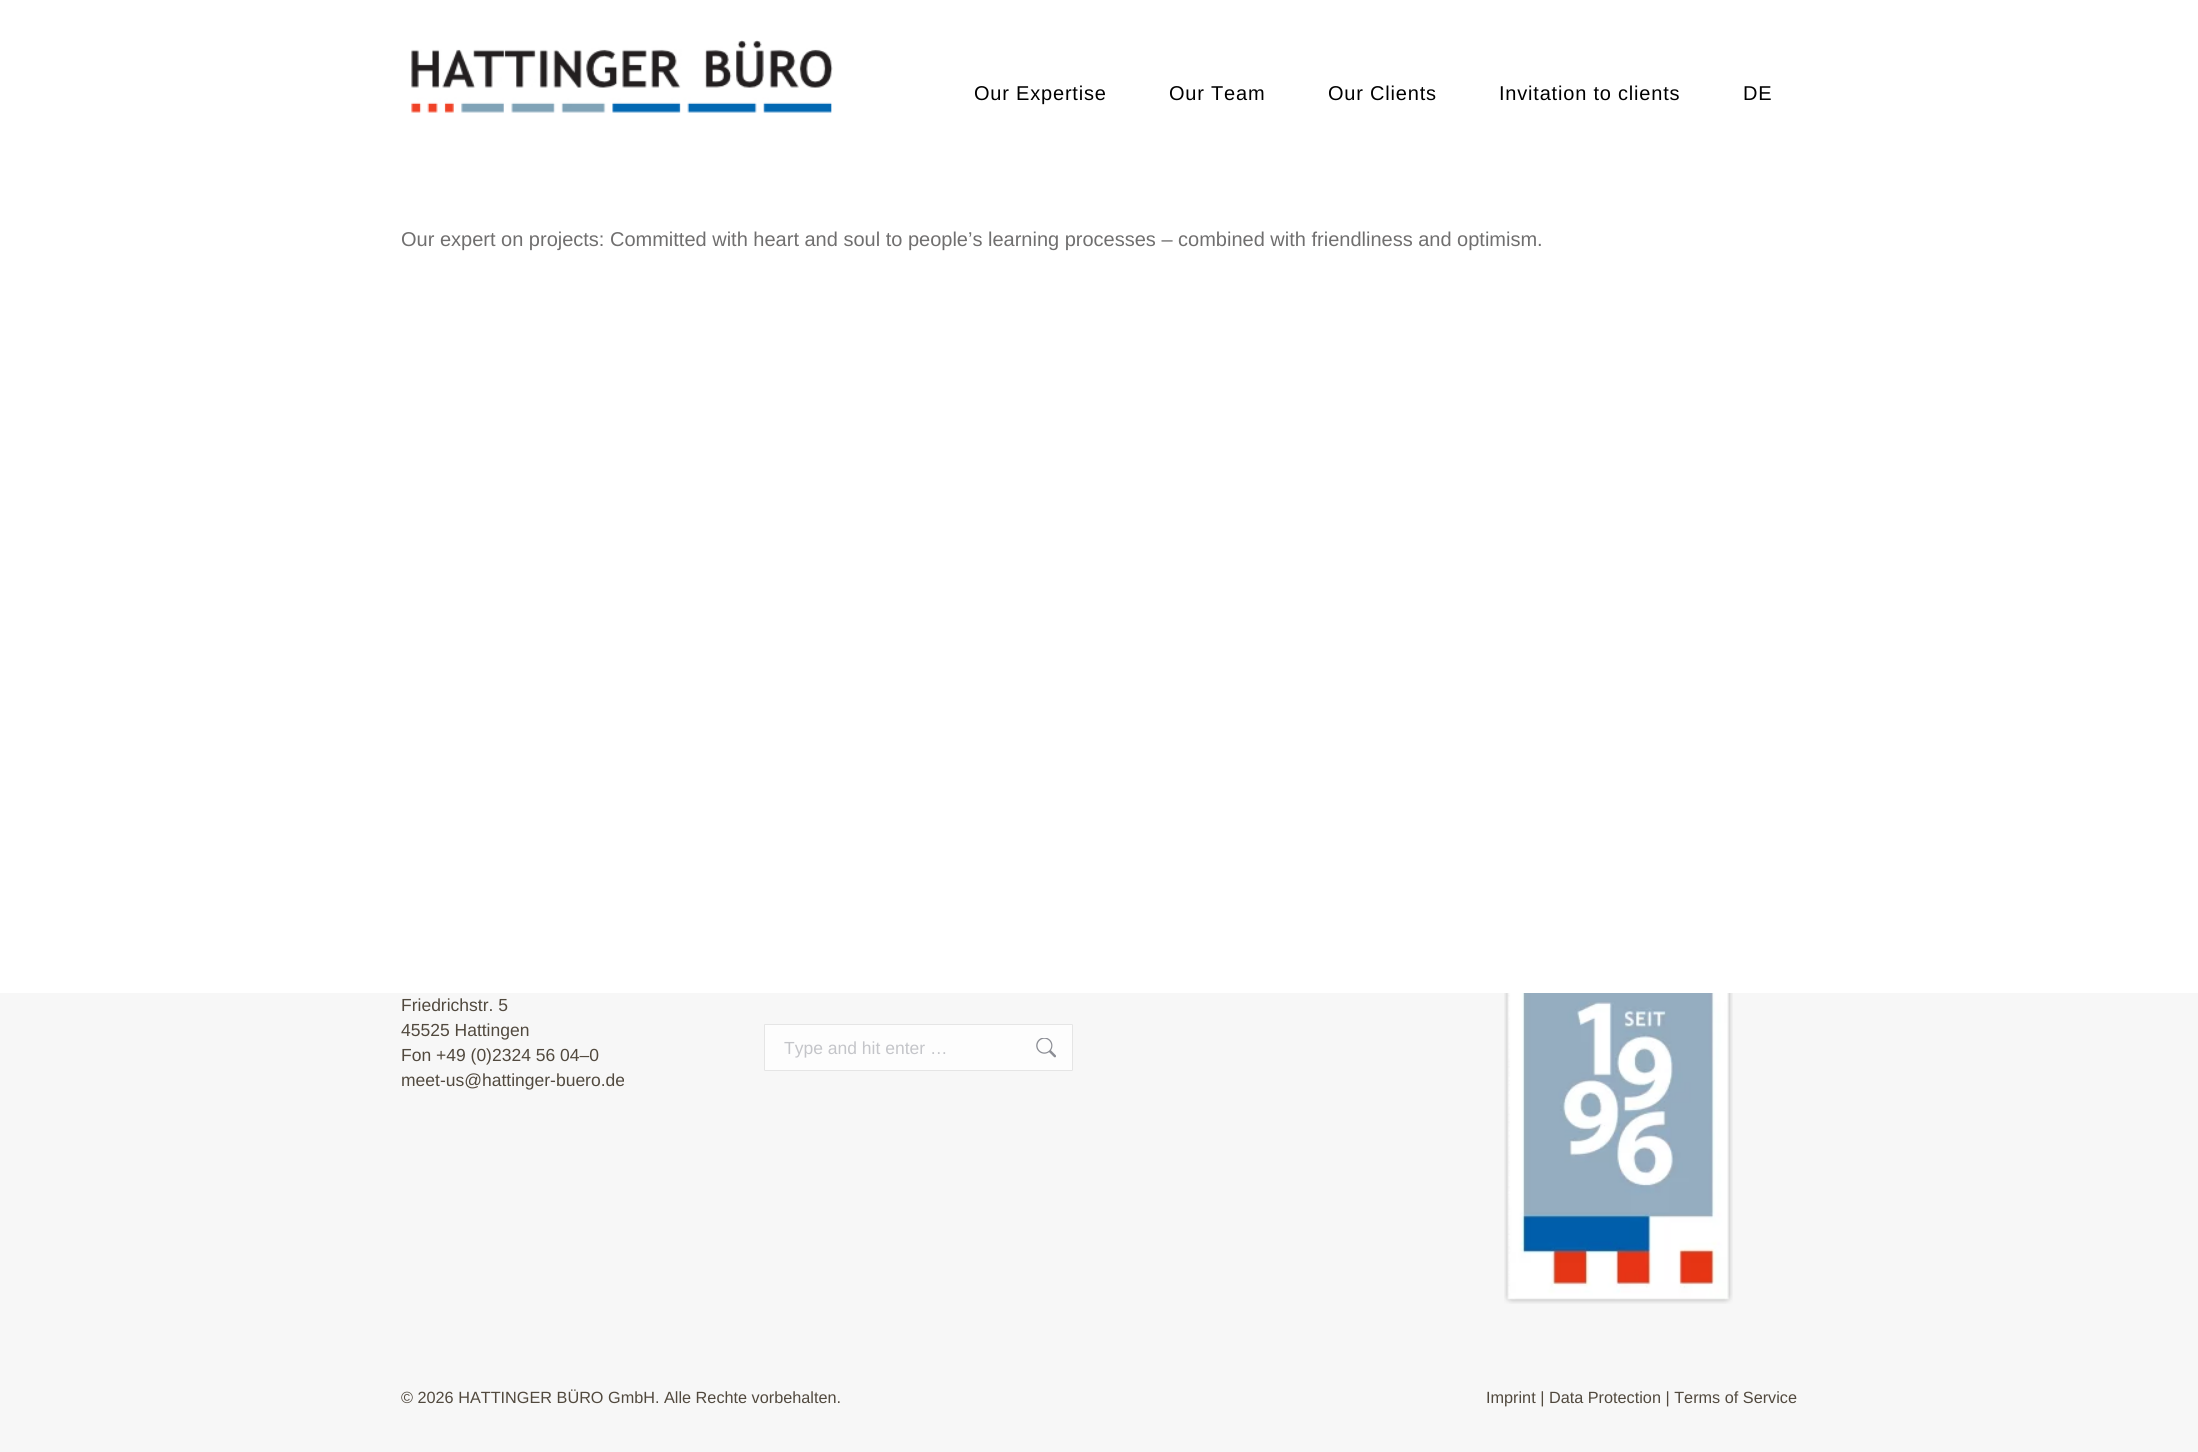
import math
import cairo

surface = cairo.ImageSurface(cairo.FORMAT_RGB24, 2198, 1452)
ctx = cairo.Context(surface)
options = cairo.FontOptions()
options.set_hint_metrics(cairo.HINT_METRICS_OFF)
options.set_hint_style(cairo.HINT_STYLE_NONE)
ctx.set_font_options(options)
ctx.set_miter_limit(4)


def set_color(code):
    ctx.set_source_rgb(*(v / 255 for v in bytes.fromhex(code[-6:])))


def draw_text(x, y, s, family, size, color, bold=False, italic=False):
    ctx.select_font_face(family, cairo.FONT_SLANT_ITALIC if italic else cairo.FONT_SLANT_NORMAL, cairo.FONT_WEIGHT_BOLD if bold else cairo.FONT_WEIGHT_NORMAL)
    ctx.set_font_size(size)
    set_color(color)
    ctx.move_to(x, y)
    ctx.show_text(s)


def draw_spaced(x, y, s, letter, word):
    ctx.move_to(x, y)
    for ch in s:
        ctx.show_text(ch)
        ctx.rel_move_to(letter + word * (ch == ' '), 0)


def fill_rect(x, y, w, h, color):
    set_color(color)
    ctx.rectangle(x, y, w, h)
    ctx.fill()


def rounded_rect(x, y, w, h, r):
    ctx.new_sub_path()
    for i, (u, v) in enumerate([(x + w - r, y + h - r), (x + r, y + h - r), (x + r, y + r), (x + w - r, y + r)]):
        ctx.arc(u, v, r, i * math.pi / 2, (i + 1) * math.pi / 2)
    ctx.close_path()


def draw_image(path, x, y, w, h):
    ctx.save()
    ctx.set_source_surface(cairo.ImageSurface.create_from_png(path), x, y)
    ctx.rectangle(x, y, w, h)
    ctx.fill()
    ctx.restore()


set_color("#ffffff")
ctx.paint()
draw_image("assets/img1.png", 411, 40, 422, 73)
ctx.select_font_face("Liberation Sans")
ctx.set_font_size(20)
set_color("#000000")
draw_spaced(974, 100, "Our Expertise", 0.8, 0)
draw_spaced(1169, 100, "Our Team", 0.8, 0)
draw_spaced(1328, 100, "Our Clients", 0.8, 0)
draw_spaced(1499, 100, "Invitation to clients", 0.8, 0)
draw_spaced(1743, 100, "DE", 0.8, 0)
draw_text(401, 246, "Our expert on projects: Committed with heart and soul to people’s learning processes – combined with friendliness and optimism.", "Liberation Sans", 20, "#706f6f")
fill_rect(0, 993, 2198, 459, "#f7f7f7")
draw_text(401, 1011, "Friedrichstr. 5", "Liberation Sans", 17.5, "#51493e")
draw_text(401, 1036, "45525 Hattingen", "Liberation Sans", 17.5, "#51493e")
draw_text(401, 1061, "Fon +49 (0)2324 56 04–0", "Liberation Sans", 17.5, "#51493e")
draw_text(401, 1086, "meet-us@hattinger-buero.de", "Liberation Sans", 17.5, "#51493e")
set_color("#fdfdfd")
rounded_rect(764.5, 1024.5, 308, 46, 0.5)
ctx.fill_preserve()
set_color("#e5e5e5")
ctx.set_line_width(1)
ctx.stroke()
draw_text(784, 1054, "Type and hit enter …", "Liberation Sans", 17.5, "#c4c5c9")
draw_image("assets/img2.png", 1036, 1038, 20, 20)
draw_image("assets/img3.png", 1504, 993, 229, 311)
draw_text(401, 1403, "© 2026 HATTINGER BÜRO GmbH. Alle Rechte vorbehalten.", "Liberation Sans", 16.25, "#51493e")
draw_text(1486, 1403, "Imprint | Data Protection | Terms of Service", "Liberation Sans", 16.25, "#51493e")
surface.write_to_png("output.png")
